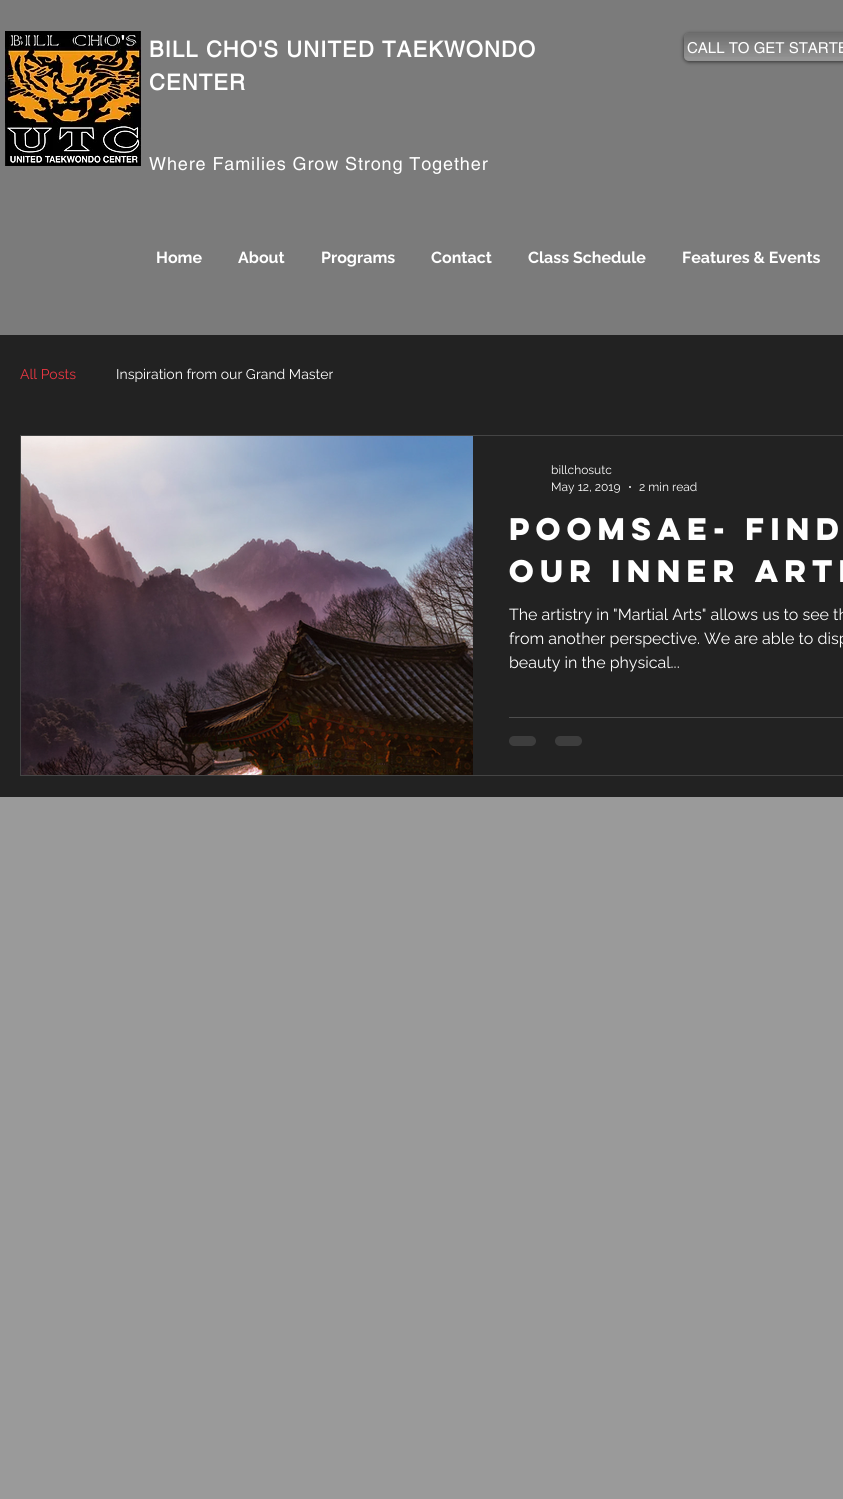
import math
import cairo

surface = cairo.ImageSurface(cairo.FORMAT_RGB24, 843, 1499)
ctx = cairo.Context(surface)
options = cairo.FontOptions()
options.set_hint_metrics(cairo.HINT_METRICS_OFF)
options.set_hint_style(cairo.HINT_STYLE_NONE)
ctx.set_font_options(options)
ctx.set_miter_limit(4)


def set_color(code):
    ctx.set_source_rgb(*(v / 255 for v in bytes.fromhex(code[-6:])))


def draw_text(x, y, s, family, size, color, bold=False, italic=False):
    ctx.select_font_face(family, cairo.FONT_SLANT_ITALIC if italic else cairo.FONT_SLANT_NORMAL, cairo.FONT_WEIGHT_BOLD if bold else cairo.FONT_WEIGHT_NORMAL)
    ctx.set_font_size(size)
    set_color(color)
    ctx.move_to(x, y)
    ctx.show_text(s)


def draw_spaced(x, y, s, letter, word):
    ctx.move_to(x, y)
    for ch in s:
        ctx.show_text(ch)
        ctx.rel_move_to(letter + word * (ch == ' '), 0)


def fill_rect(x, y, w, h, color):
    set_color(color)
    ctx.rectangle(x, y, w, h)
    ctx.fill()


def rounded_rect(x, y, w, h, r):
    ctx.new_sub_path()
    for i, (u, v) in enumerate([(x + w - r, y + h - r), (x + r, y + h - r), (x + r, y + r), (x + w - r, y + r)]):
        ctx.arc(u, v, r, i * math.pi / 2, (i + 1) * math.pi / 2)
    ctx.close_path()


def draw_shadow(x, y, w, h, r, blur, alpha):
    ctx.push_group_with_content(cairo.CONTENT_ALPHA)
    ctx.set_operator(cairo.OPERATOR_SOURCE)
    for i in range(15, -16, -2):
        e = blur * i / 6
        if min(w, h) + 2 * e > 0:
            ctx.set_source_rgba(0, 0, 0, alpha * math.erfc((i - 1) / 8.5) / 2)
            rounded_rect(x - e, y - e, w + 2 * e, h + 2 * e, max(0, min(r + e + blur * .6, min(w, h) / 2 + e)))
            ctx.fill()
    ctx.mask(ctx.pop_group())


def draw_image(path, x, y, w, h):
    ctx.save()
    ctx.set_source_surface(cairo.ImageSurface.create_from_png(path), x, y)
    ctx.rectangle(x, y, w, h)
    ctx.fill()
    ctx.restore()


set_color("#9a9a9a")
ctx.paint()
fill_rect(0, 0, 843, 335, "#7b7b7b")
draw_image("assets/img1.png", 5, 31, 136, 135)
ctx.select_font_face("helvetica", cairo.FONT_SLANT_NORMAL, cairo.FONT_WEIGHT_BOLD)
ctx.set_font_size(22)
set_color("#ffffff")
draw_spaced(149, 57, "BILL CHO'S UNITED TAEKWONDO", 1.1, 0)
draw_spaced(149, 90, "CENTER", 1.1, 0)
ctx.save()
ctx.set_fill_rule(cairo.FILL_RULE_EVEN_ODD)
ctx.new_path()
ctx.move_to(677, 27)
ctx.line_to(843, 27)
ctx.line_to(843, 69)
ctx.line_to(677, 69)
ctx.close_path()
ctx.move_to(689, 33)
ctx.line_to(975, 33)
ctx.curve_to(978, 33, 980, 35, 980, 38)
ctx.line_to(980, 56)
ctx.curve_to(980, 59, 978, 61, 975, 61)
ctx.line_to(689, 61)
ctx.curve_to(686, 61, 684, 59, 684, 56)
ctx.line_to(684, 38)
ctx.curve_to(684, 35, 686, 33, 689, 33)
ctx.close_path()
ctx.clip()
set_color("#000000")
draw_shadow(684, 34, 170, 28, 5, 2, 0.6)
ctx.restore()
draw_image("assets/img2.png", 684, 33, 159, 24)
draw_image("assets/img3.png", 684, 33, 159, 28)
draw_text(687, 53, "CALL TO GET STARTE", "helvetica", 15, "#ffffff")
ctx.set_font_size(18)
draw_spaced(149, 170, "Where Families Grow Strong Together", 0.9, 0)
draw_text(156, 263, "Home", "Raleway", 16, "#ffffff", bold=True)
draw_text(238, 263, "About", "Raleway", 16, "#ffffff", bold=True)
draw_text(321, 263, "Programs", "Raleway", 16, "#ffffff", bold=True)
draw_text(431, 263, "Contact", "Raleway", 16, "#ffffff", bold=True)
draw_text(528, 263, "Class Schedule", "Raleway", 16, "#ffffff", bold=True)
draw_text(682, 263, "Features & Events", "Raleway", 16, "#ffffff", bold=True)
fill_rect(0, 335, 843, 462, "#222222")
draw_text(20, 379, "All Posts", "Raleway", 14, "#ec3642")
draw_text(116, 379, "Inspiration from our Grand Master", "Raleway", 14, "#ffffff")
ctx.rectangle(20.5, 435.5, 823, 340)
set_color("#444444")
ctx.set_line_width(1)
ctx.stroke()
draw_image("assets/img4.png", 21, 436, 452, 339)
draw_text(551, 474, "billchosutc", "Raleway", 12, "#ffffff")
draw_text(551, 491, "May 12, 2019", "Raleway", 12, "#ffffff")
ctx.new_path()
ctx.arc(630, 487, 1, 0, 2 * math.pi)
ctx.fill()
draw_text(639, 491, "2 min read", "Raleway", 12, "#ffffff")
draw_text(509, 540, "Poomsae- Find", "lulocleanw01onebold", 28, "#ffffff", bold=True)
draw_text(509, 582, "Our Inner Arti", "lulocleanw01onebold", 28, "#ffffff", bold=True)
draw_text(509, 620, "The artistry in \"Martial Arts\" allows us to see th", "Raleway", 16, "#ffffff")
draw_text(509, 644, "from another perspective. We are able to disp", "Raleway", 16, "#ffffff")
draw_text(509, 668, "beauty in the physical...", "Raleway", 16, "#ffffff")
fill_rect(509, 717, 334, 1, "#4e4e4e")
set_color("#3d3d3d")
rounded_rect(509, 736, 27, 10, 5)
ctx.fill()
rounded_rect(555, 736, 27, 10, 5)
ctx.fill()
surface.write_to_png("output.png")
